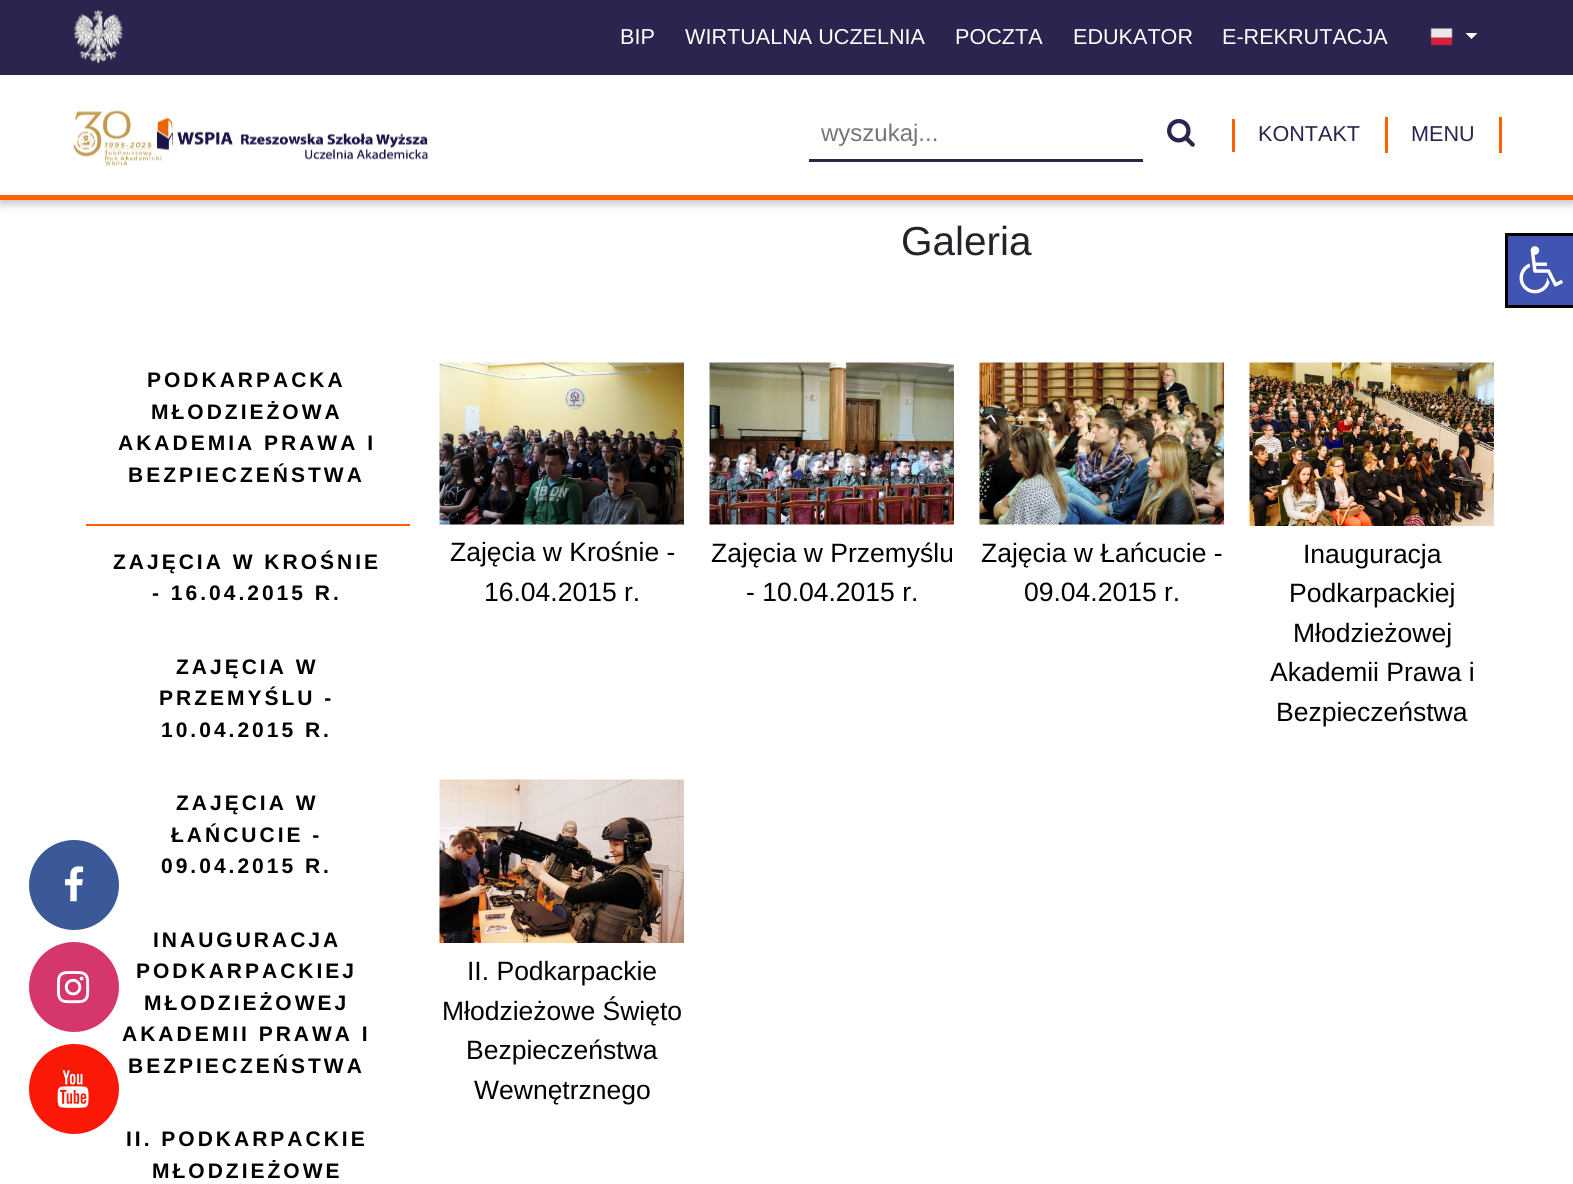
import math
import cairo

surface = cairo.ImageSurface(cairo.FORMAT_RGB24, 1573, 1184)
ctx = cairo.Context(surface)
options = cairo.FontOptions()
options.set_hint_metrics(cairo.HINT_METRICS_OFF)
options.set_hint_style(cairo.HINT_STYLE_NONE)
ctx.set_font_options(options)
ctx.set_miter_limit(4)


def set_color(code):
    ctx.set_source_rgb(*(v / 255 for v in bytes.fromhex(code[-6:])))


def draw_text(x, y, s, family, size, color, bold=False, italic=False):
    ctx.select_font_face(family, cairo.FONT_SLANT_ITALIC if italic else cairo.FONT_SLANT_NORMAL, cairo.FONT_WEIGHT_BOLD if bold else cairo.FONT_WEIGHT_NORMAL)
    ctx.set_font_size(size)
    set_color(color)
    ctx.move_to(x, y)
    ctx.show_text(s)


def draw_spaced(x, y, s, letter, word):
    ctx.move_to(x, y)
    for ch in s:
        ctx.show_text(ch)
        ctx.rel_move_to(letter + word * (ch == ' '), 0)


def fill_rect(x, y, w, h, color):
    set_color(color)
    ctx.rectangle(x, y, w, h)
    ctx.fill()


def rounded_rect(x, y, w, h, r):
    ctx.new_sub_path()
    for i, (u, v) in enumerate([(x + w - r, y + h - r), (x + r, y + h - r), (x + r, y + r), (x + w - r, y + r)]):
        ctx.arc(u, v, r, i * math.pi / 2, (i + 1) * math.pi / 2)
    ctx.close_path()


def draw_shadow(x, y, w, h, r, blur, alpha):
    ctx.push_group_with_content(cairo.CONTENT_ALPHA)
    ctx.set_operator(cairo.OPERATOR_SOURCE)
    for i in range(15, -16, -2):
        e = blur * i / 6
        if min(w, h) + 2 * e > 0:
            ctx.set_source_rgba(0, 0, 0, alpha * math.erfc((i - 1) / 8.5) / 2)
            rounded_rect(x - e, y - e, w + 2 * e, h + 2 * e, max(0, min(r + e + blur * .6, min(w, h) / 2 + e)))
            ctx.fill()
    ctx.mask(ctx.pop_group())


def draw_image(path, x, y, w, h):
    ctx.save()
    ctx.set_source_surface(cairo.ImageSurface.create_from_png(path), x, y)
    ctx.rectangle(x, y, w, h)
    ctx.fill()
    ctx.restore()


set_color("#ffffff")
ctx.paint()
set_color("#000000")
draw_shadow(0, 3, 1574, 200, 0, 7.5, 0.12)
draw_shadow(0, 3, 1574, 200, 0, 4, 0.16)
fill_rect(0, 75, 1573, 120, "#ffffff")
fill_rect(0, 195, 1573, 5, "#ff6100")
fill_rect(0, 0, 1573, 75, "#29254f")
draw_image("assets/img1.png", 74, 10, 49, 54)
draw_text(620, 44, "BIP", "Liberation Sans", 21.6, "#ffffff")
draw_text(685, 44, "WIRTUALNA UCZELNIA", "Liberation Sans", 21.6, "#ffffff")
draw_text(955, 44, "POCZTA", "Liberation Sans", 21.6, "#ffffff")
draw_text(1073, 44, "EDUKATOR", "Liberation Sans", 21.6, "#ffffff")
draw_text(1222, 44, "E-REKRUTACJA", "Liberation Sans", 21.6, "#ffffff")
draw_image("assets/img2.png", 1430, 28, 23, 18)
ctx.new_path()
ctx.move_to(1465.5, 33)
ctx.line_to(1477.5, 33)
ctx.line_to(1471.5, 39)
ctx.close_path()
ctx.fill()
draw_image("assets/img3.png", 73, 110, 355, 56)
fill_rect(809, 159, 334, 3, "#29254f")
draw_text(821, 141, "wyszukaj...", "Liberation Sans", 24, "#757575")
draw_image("assets/img4.png", 1167, 118, 28, 29)
fill_rect(1232, 119, 3, 33, "#ff6100")
draw_text(1258, 141, "KONTAKT", "Liberation Sans", 21.6, "#29254f")
fill_rect(1499, 117, 3, 36, "#ff6100")
fill_rect(1385, 117, 3, 36, "#ff6100")
draw_text(1411, 141, "MENU", "Liberation Sans", 21.6, "#29254f")
ctx.select_font_face("Liberation Sans", cairo.FONT_SLANT_NORMAL, cairo.FONT_WEIGHT_BOLD)
ctx.set_font_size(21)
set_color("#000000")
draw_spaced(147, 387, "PODKARPACKA", 3, 0)
draw_spaced(151, 419, "MŁODZIEŻOWA", 3, 0)
draw_spaced(118, 450, "AKADEMIA PRAWA I", 3, 0)
draw_spaced(128, 482, "BEZPIECZEŃSTWA", 3, 0)
fill_rect(86, 524, 324, 2, "#ff6100")
set_color("#000000")
draw_spaced(113, 569, "ZAJĘCIA W KROŚNIE", 3, 0)
draw_spaced(152, 600, "- 16.04.2015 R.", 3, 0)
draw_spaced(176, 674, "ZAJĘCIA W", 3, 0)
draw_spaced(159, 705, "PRZEMYŚLU -", 3, 0)
draw_spaced(161, 737, "10.04.2015 R.", 3, 0)
draw_spaced(176, 810, "ZAJĘCIA W", 3, 0)
draw_spaced(171, 842, "ŁAŃCUCIE -", 3, 0)
draw_spaced(161, 873, "09.04.2015 R.", 3, 0)
draw_spaced(153, 947, "INAUGURACJA", 3, 0)
draw_spaced(136, 978, "PODKARPACKIEJ", 3, 0)
draw_spaced(144, 1010, "MŁODZIEŻOWEJ", 3, 0)
draw_spaced(122, 1041, "AKADEMII PRAWA I", 3, 0)
draw_spaced(128, 1073, "BEZPIECZEŃSTWA", 3, 0)
draw_spaced(126, 1146, "II. PODKARPACKIE", 3, 0)
draw_spaced(152, 1178, "MŁODZIEŻOWE", 3, 0)
draw_text(901, 255, "Galeria", "Liberation Sans", 40.5, "#212529")
draw_image("assets/img5.png", 439, 362, 245, 163)
draw_text(450, 561, "Zajęcia w Krośnie -", "Liberation Sans", 26.5, "#000000")
draw_text(484, 601, "16.04.2015 r.", "Liberation Sans", 26.5, "#000000")
draw_image("assets/img6.png", 709, 362, 245, 163)
draw_text(711, 562, "Zajęcia w Przemyślu", "Liberation Sans", 26.5, "#000000")
draw_text(746, 601, "- 10.04.2015 r.", "Liberation Sans", 26.5, "#000000")
draw_image("assets/img7.png", 979, 362, 245, 163)
draw_text(981, 562, "Zajęcia w Łańcucie -", "Liberation Sans", 26.5, "#000000")
draw_text(1024, 601, "09.04.2015 r.", "Liberation Sans", 26.5, "#000000")
draw_image("assets/img8.png", 1249, 362, 245, 164)
draw_text(1303, 563, "Inauguracja", "Liberation Sans", 26.5, "#000000")
draw_text(1289, 602, "Podkarpackiej", "Liberation Sans", 26.5, "#000000")
draw_text(1293, 642, "Młodzieżowej", "Liberation Sans", 26.5, "#000000")
draw_text(1270, 681, "Akademii Prawa i", "Liberation Sans", 26.5, "#000000")
draw_text(1276, 721, "Bezpieczeństwa", "Liberation Sans", 26.5, "#000000")
draw_image("assets/img9.png", 439, 779, 245, 164)
draw_text(467, 980, "II. Podkarpackie", "Liberation Sans", 26.5, "#000000")
draw_text(442, 1020, "Młodzieżowe Święto", "Liberation Sans", 26.5, "#000000")
draw_text(466, 1059, "Bezpieczeństwa", "Liberation Sans", 26.5, "#000000")
draw_text(474, 1099, "Wewnętrznego", "Liberation Sans", 26.5, "#000000")
set_color("#4054b2")
ctx.rectangle(1506.5, 234.5, 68, 72)
ctx.fill_preserve()
set_color("#000000")
ctx.set_line_width(3)
ctx.stroke()
draw_image("assets/img10.png", 1519, 246, 45, 48)
set_color("#3b5998")
ctx.arc(74, 885, 45, 0, 2 * math.pi)
ctx.fill()
draw_image("assets/img11.png", 65, 866, 19, 36)
set_color("#d5366b")
ctx.arc(74, 987, 45, 0, 2 * math.pi)
ctx.fill()
draw_image("assets/img12.png", 57, 971, 33, 33)
set_color("#fa1807")
ctx.arc(74, 1089, 45, 0, 2 * math.pi)
ctx.fill()
draw_image("assets/img13.png", 57, 1070, 32, 38)
surface.write_to_png("output.png")
